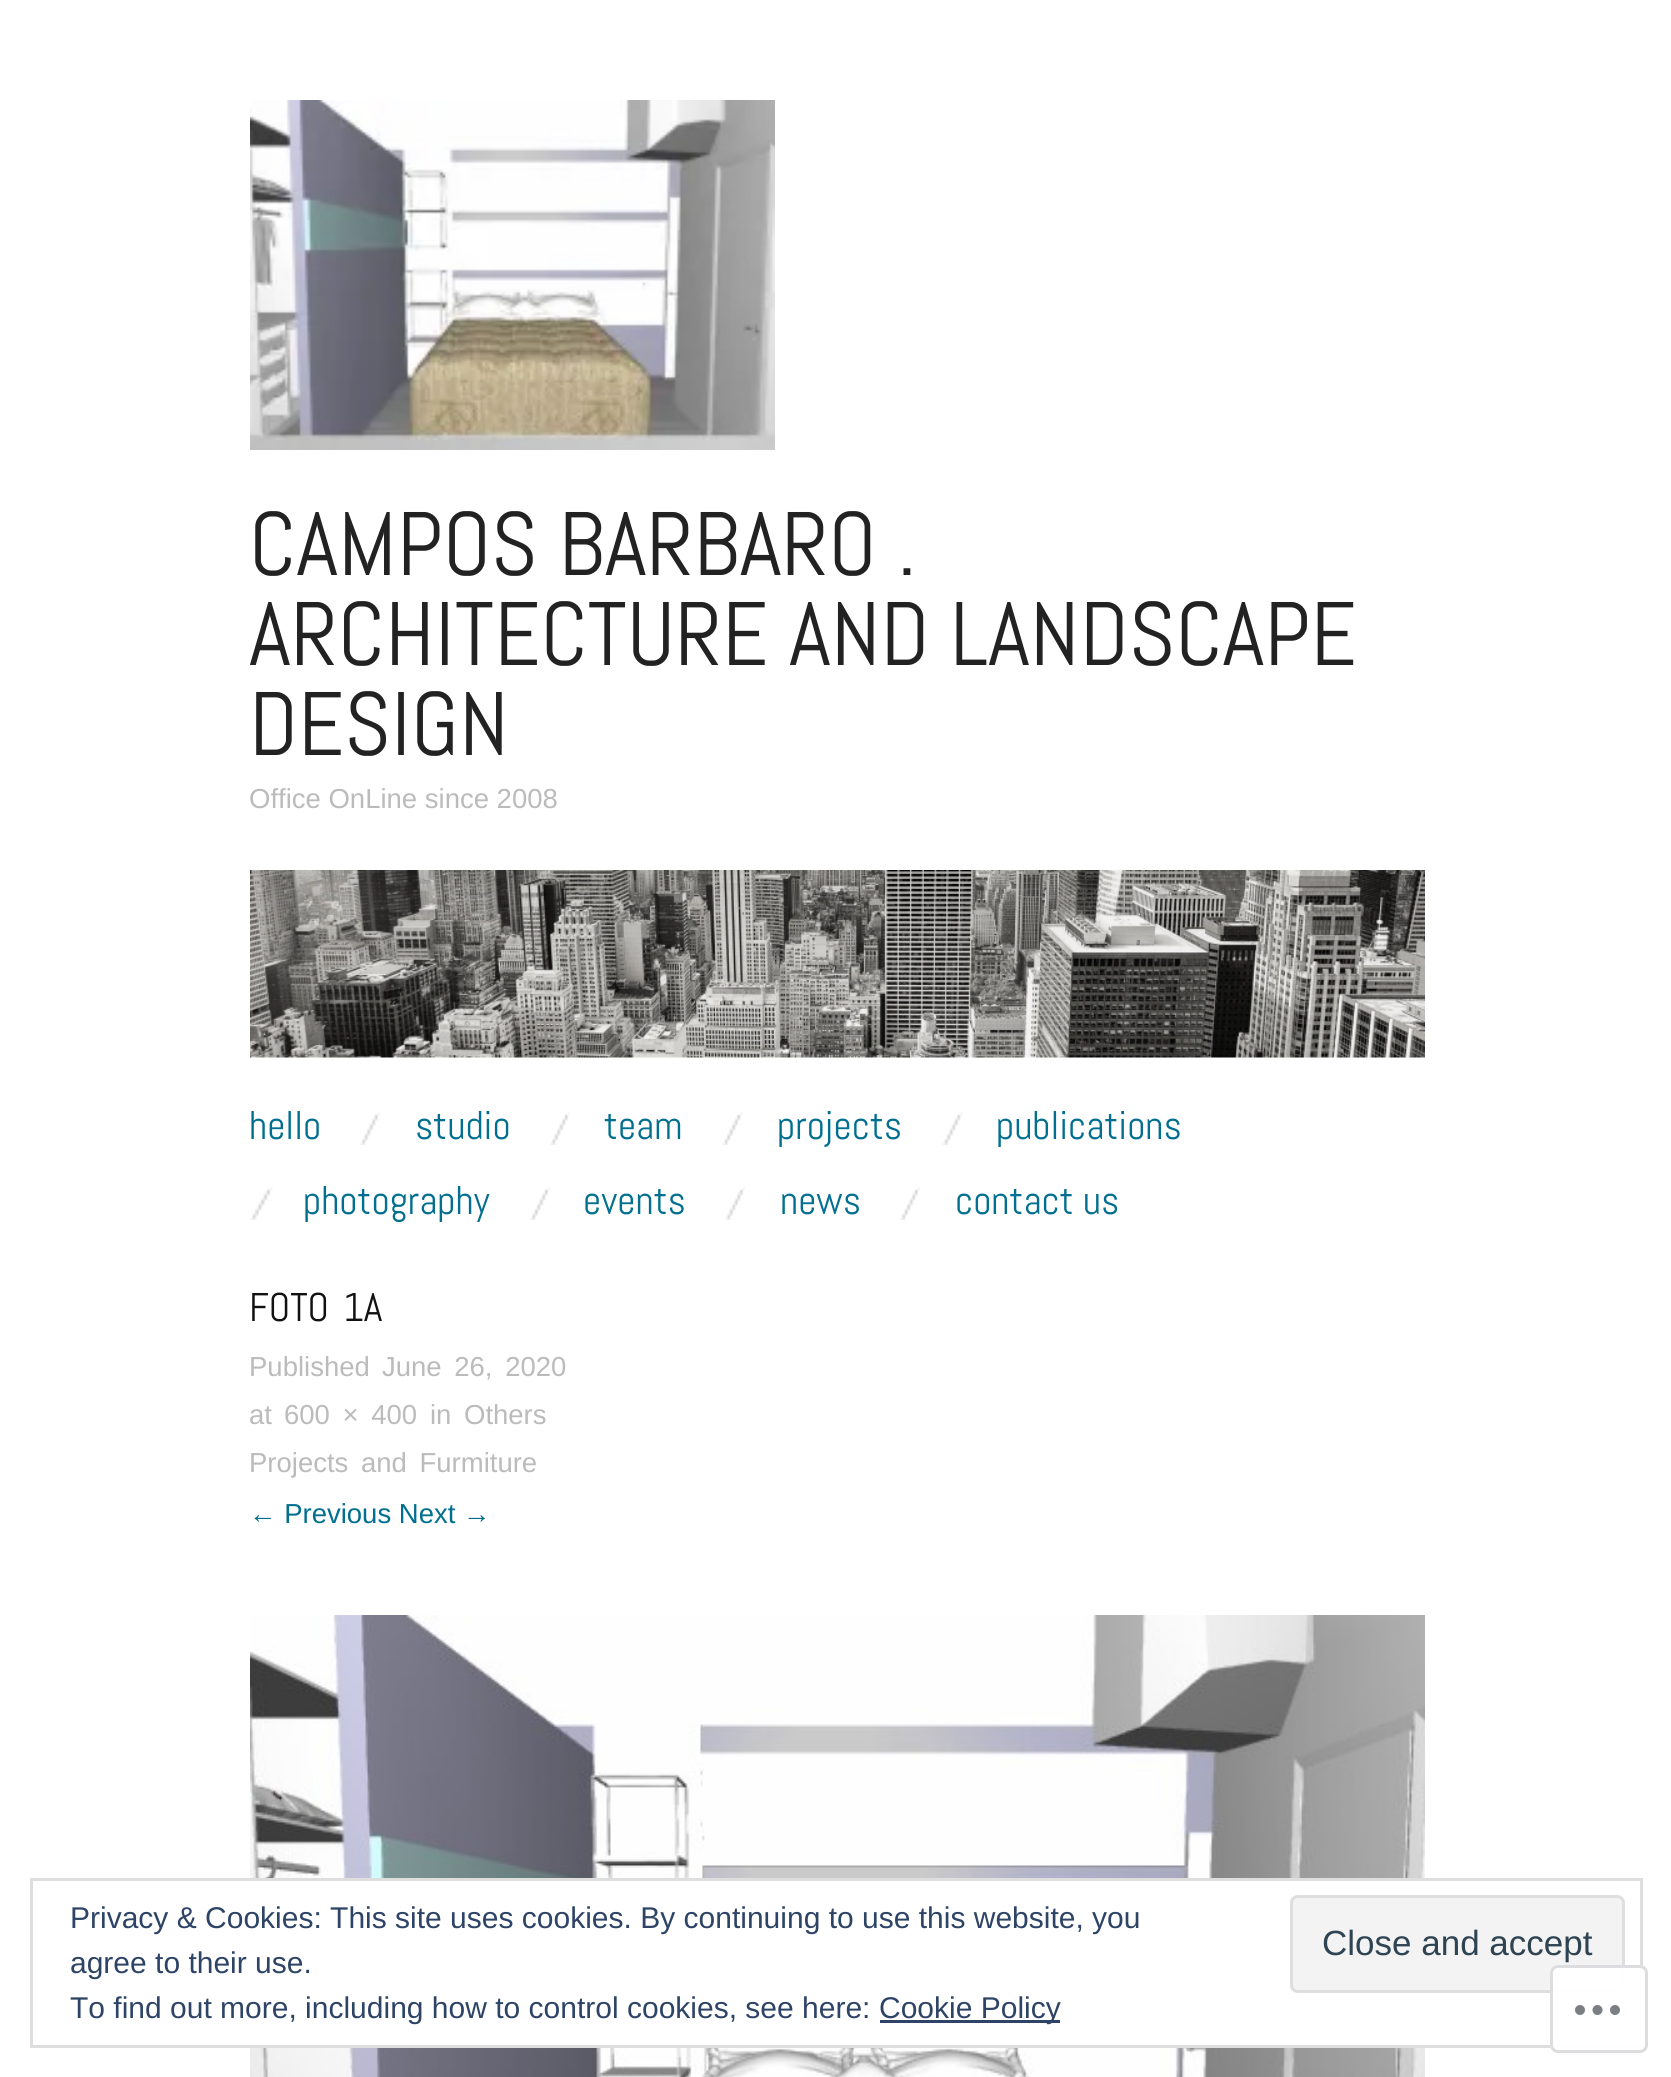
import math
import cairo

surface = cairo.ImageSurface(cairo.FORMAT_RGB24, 1671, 2077)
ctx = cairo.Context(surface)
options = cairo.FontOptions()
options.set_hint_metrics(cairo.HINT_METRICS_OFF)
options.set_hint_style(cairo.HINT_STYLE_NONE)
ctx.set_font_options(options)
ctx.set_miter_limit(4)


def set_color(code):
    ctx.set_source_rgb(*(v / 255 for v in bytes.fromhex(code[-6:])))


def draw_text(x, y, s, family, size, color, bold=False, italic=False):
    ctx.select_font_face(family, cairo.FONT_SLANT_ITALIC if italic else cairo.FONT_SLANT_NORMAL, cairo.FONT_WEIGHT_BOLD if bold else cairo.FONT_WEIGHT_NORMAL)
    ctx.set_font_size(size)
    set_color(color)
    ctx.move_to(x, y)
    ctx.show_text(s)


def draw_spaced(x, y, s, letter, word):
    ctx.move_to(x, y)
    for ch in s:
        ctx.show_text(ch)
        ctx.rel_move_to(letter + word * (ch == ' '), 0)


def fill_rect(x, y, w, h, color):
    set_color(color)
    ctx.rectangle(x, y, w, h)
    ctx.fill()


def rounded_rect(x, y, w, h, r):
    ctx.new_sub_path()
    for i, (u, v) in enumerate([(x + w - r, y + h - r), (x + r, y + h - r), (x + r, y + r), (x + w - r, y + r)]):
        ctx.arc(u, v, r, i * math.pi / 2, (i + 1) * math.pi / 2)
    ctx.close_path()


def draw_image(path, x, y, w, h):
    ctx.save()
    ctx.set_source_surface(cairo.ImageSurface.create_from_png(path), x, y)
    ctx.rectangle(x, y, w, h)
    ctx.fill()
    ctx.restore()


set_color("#ffffff")
ctx.paint()
draw_image("assets/img1.png", 250, 100, 525, 350)
draw_text(249, 575, "CAMPOS BARBARO .", "Abel", 90, "#222222")
draw_text(249, 665, "ARCHITECTURE AND LANDSCAPE", "Abel", 90, "#222222")
draw_text(249, 755, "DESIGN", "Abel", 90, "#222222")
draw_text(249, 808, "Office OnLine since 2008", "Liberation Sans", 27.5, "#bbbbbb")
draw_image("assets/img2.png", 250, 870, 1175, 188)
draw_text(249, 1139, "hello", "Abel", 40, "#026f90")
draw_image("assets/img3.png", 360, 1112, 20, 33)
draw_text(415, 1139, "studio", "Abel", 40, "#026f90")
draw_image("assets/img4.png", 550, 1112, 20, 33)
draw_text(604, 1139, "team", "Abel", 40, "#026f90")
draw_image("assets/img5.png", 722, 1112, 21, 33)
draw_text(777, 1139, "projects", "Abel", 40, "#026f90")
draw_image("assets/img6.png", 942, 1112, 21, 33)
draw_text(996, 1139, "publications", "Abel", 40, "#026f90")
draw_image("assets/img7.png", 250, 1187, 23, 33)
draw_text(303, 1214, "photography", "Abel", 40, "#026f90")
draw_image("assets/img4.png", 530, 1187, 20, 33)
draw_text(583, 1214, "events", "Abel", 40, "#026f90")
draw_image("assets/img4.png", 725, 1187, 20, 33)
draw_text(780, 1214, "news", "Abel", 40, "#026f90")
draw_image("assets/img3.png", 900, 1187, 20, 33)
draw_text(955, 1214, "contact us", "Abel", 40, "#026f90")
set_color("#111111")
draw_spaced(249, 1321, "FOTO 1A", 0, 5)
draw_text(249, 1376, "Published", "Liberation Sans", 27.5, "#bbbbbb")
draw_spaced(382, 1376, "June 26, 2020", 0, 5)
draw_text(249, 1424, "at", "Liberation Sans", 27.5, "#bbbbbb")
draw_spaced(284, 1424, "600 × 400", 0, 5)
draw_text(430, 1424, "in", "Liberation Sans", 27.5, "#bbbbbb")
draw_text(464, 1424, "Others", "Liberation Sans", 27.5, "#bbbbbb")
draw_spaced(249, 1472, "Projects and Furmiture", 0, 5)
draw_text(249, 1523, "← Previous Next →", "Liberation Sans", 27.5, "#026f90")
draw_image("assets/img8.png", 250, 1615, 1175, 462)
fill_rect(250, 1881, 1175, 164, "#ffffff")
ctx.rectangle(31.5, 1879.5, 1610, 167)
set_color("#dedede")
ctx.set_line_width(3)
ctx.stroke()
draw_text(70, 1928, "Privacy & Cookies: This site uses cookies. By continuing to use this website, you", "Liberation Sans", 30, "#2e4467")
draw_text(70, 1973, "agree to their use.", "Liberation Sans", 30, "#2e4467")
set_color("#f3f3f3")
rounded_rect(1291.5, 1896.5, 332, 95, 6.5)
ctx.fill_preserve()
set_color("#dedede")
ctx.stroke()
draw_text(1322, 1955, "Close and accept", "Liberation Sans", 35, "#2e4453")
draw_text(70, 2018, "To find out more, including how to control cookies, see here:", "Liberation Sans", 30, "#2e4467")
fill_rect(880, 2020, 180, 3, "#2e4467")
draw_text(879, 2018, "Cookie Policy", "Liberation Sans", 30, "#2e4467")
ctx.set_source_rgba(1, 1, 1, 0.98)
rounded_rect(1550, 1965, 98, 88, 8)
ctx.fill()
rounded_rect(1551.5, 1966.5, 95, 85, 6.5)
ctx.set_source_rgba(0.863, 0.863, 0.871, 0.98)
ctx.stroke()
draw_image("assets/img9.png", 1575, 2005, 45, 10)
surface.write_to_png("output.png")
